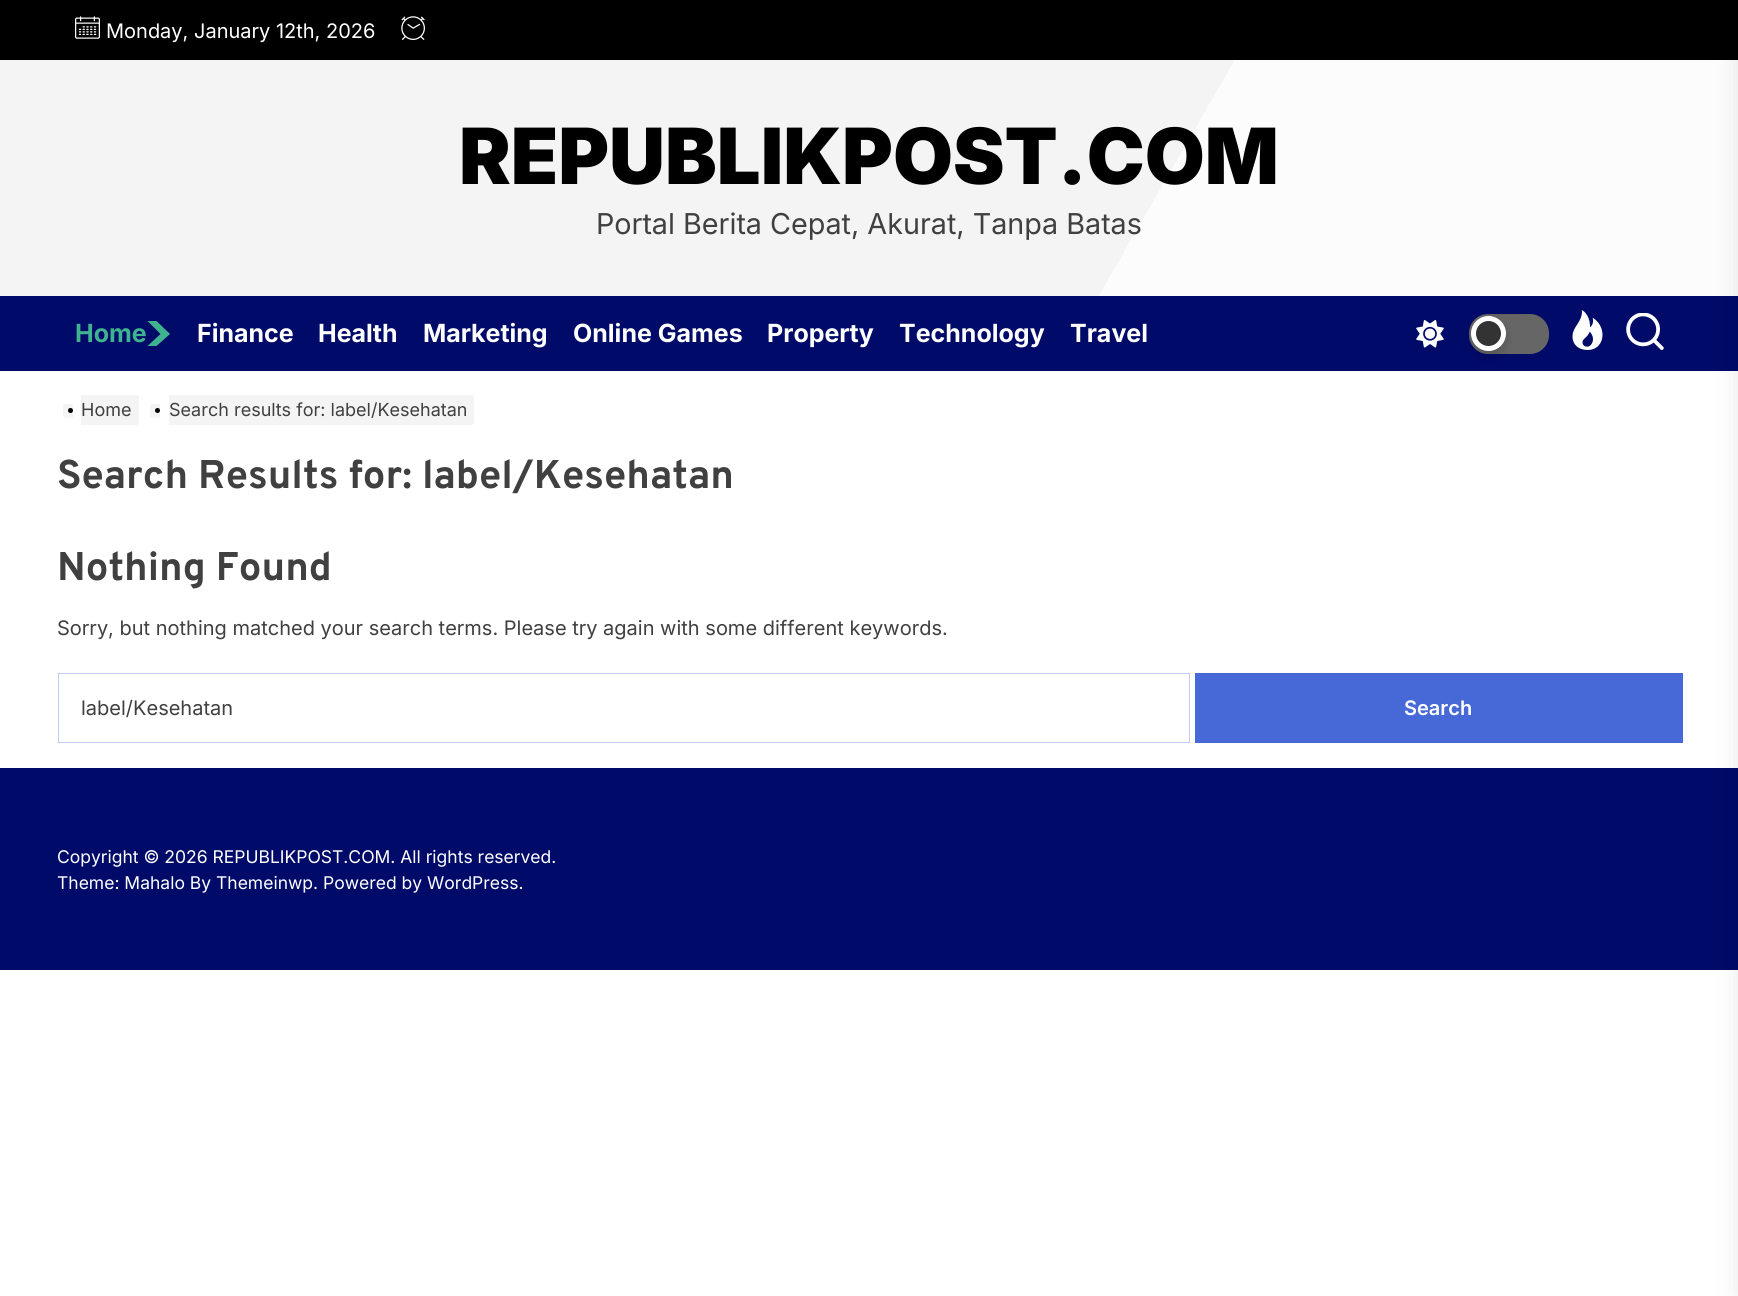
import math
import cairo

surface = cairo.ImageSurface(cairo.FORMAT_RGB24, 1738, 1296)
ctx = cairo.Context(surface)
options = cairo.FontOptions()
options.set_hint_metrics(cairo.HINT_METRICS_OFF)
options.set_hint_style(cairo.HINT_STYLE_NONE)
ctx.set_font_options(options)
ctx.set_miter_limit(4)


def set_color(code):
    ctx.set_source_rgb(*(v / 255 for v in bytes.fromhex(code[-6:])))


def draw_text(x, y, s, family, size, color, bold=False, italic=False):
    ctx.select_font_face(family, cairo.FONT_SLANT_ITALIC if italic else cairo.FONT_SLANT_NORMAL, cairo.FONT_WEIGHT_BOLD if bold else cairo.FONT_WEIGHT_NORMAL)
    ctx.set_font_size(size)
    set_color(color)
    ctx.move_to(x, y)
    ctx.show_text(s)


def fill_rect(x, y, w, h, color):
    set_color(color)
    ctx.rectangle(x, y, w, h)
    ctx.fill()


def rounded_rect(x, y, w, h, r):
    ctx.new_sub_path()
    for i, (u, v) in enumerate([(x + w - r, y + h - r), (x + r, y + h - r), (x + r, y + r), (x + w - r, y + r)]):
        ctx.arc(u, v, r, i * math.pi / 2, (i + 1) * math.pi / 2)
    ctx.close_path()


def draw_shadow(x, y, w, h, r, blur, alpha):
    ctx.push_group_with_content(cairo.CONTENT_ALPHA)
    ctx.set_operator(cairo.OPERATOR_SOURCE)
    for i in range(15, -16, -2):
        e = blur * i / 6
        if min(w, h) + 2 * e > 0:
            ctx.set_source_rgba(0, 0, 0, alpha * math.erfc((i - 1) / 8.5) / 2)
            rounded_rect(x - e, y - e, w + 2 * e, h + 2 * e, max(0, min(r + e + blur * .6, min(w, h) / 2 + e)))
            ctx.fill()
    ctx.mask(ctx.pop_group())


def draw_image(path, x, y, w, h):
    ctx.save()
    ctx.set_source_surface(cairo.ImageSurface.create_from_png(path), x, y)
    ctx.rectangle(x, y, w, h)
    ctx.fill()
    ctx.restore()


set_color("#ffffff")
ctx.paint()
gradient = cairo.LinearGradient(1602, 608, 137, -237)
gradient.add_color_stop_rgba(0.35, 0.988, 0.988, 0.988, 1)
gradient.add_color_stop_rgba(0.35, 0.957, 0.957, 0.957, 1)
ctx.set_source(gradient)
ctx.rectangle(0, 60, 1738, 236)
ctx.fill()
fill_rect(0, 0, 1738, 60, "#000000")
draw_image("assets/img1.png", 75, 16, 25, 23)
draw_text(106, 38, "Monday, January 12th, 2026", "Inter", 20, "#ffffff")
draw_image("assets/img2.png", 401, 16, 24, 24)
draw_text(459, 184, "REPUBLIKPOST.COM", "Inter Black", 77.5, "#000000")
draw_text(596, 234, "Portal Berita Cepat, Akurat, Tanpa Batas", "Inter", 28.75, "#404040")
fill_rect(0, 296, 1738, 75, "#000a68")
draw_text(75, 342, "Home", "Inter", 25, "#3fb28f", bold=True)
ctx.new_path()
ctx.move_to(160.5, 334)
ctx.line_to(147.5, 321)
ctx.line_to(156.5, 321)
ctx.line_to(170, 334)
ctx.line_to(156.5, 346)
ctx.line_to(147.5, 346)
ctx.close_path()
ctx.fill()
draw_text(197, 342, "Finance", "Inter", 25, "#ffffff", bold=True)
draw_text(318, 342, "Health", "Inter", 25, "#ffffff", bold=True)
draw_text(423, 342, "Marketing", "Inter", 25, "#ffffff", bold=True)
draw_text(573, 342, "Online Games", "Inter", 25, "#ffffff", bold=True)
draw_text(767, 342, "Property", "Inter", 25, "#ffffff", bold=True)
draw_text(899, 342, "Technology", "Inter", 25, "#ffffff", bold=True)
draw_text(1070, 342, "Travel", "Inter", 25, "#ffffff", bold=True)
draw_image("assets/img3.png", 1416, 320, 28, 28)
set_color("#666666")
rounded_rect(1469, 314, 80, 40, 19)
ctx.fill()
ctx.set_source_rgba(0, 0, 0, 0.05)
ctx.new_path()
ctx.move_to(1488, 315)
ctx.line_to(1516, 315)
ctx.curve_to(1522, 315, 1531, 313, 1537, 316)
ctx.curve_to(1545, 319, 1549, 327, 1549, 335)
ctx.curve_to(1549, 310, 1527, 314, 1509, 314)
ctx.curve_to(1492, 314, 1469, 310, 1469, 335)
ctx.curve_to(1469, 325, 1476, 315, 1488, 315)
ctx.close_path()
ctx.fill()
set_color("#000000")
draw_shadow(1471, 321, 35, 35, 17.5, 5, 0.16)
set_color("#333333")
ctx.arc(1488.5, 333.5, 15, 0, 2 * math.pi)
ctx.fill_preserve()
set_color("#ffffff")
ctx.set_line_width(5)
ctx.stroke()
draw_image("assets/img4.png", 1572, 310, 31, 40)
draw_image("assets/img5.png", 1626, 313, 38, 37)
fill_rect(0, 768, 1738, 202, "#000a68")
set_color("#000000")
draw_shadow(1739, 0, 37, 1296, 0, 12.5, 0.1)
set_color("#f4f4f4")
ctx.new_path()
ctx.move_to(65.5, 404)
ctx.line_to(73, 404)
ctx.line_to(73, 418)
ctx.line_to(65.5, 418)
ctx.curve_to(64, 418, 63, 417, 63, 415.5)
ctx.line_to(63, 406.5)
ctx.curve_to(63, 405, 64, 404, 65.5, 404)
ctx.close_path()
ctx.fill()
ctx.new_path()
ctx.move_to(81, 395)
ctx.line_to(136.5, 395)
ctx.curve_to(138, 395, 139, 396, 139, 397.5)
ctx.line_to(139, 422.5)
ctx.curve_to(139, 424, 138, 425, 136.5, 425)
ctx.line_to(81, 425)
ctx.close_path()
ctx.fill()
set_color("#000000")
ctx.arc(70.5, 410.5, 2.5, 0, 2 * math.pi)
ctx.fill()
draw_text(81, 416, "Home", "Inter", 18, "#404040")
set_color("#f4f4f4")
ctx.new_path()
ctx.move_to(152.5, 404)
ctx.line_to(160, 404)
ctx.line_to(160, 418)
ctx.line_to(152.5, 418)
ctx.curve_to(151, 418, 150, 417, 150, 415.5)
ctx.line_to(150, 406.5)
ctx.curve_to(150, 405, 151, 404, 152.5, 404)
ctx.close_path()
ctx.fill()
ctx.new_path()
ctx.move_to(169, 395)
ctx.line_to(471.5, 395)
ctx.curve_to(473, 395, 474, 396, 474, 397.5)
ctx.line_to(474, 422.5)
ctx.curve_to(474, 424, 473, 425, 471.5, 425)
ctx.line_to(169, 425)
ctx.close_path()
ctx.fill()
set_color("#000000")
ctx.arc(157.5, 410.5, 2.5, 0, 2 * math.pi)
ctx.fill()
draw_text(169, 416, "Search results for: label/Kesehatan", "Inter", 18, "#404040")
draw_text(57, 488, "Search Results for: label/Kesehatan", "Overpass", 40, "#404040", bold=True)
draw_text(57, 580, "Nothing Found", "Overpass", 40, "#404040", bold=True)
draw_text(57, 635, "Sorry, but nothing matched your search terms. Please try again with some different keywords.", "Inter", 20, "#404040")
ctx.rectangle(58.5, 673.5, 1131, 69)
set_color("#c2cff8")
ctx.set_line_width(1)
ctx.stroke()
draw_text(81, 715, "label/Kesehatan", "Inter", 20, "#404040")
fill_rect(1195, 673, 488, 70, "#4769d8")
draw_text(1404, 715, "Search", "Inter SemiBold", 20, "#ffffff")
draw_text(57, 863, "Copyright © 2026 REPUBLIKPOST.COM. All rights reserved.", "Inter", 17.5, "#ffffff")
draw_text(57, 889, "Theme: Mahalo By Themeinwp. Powered by WordPress.", "Inter", 17.5, "#ffffff")
surface.write_to_png("output.png")
